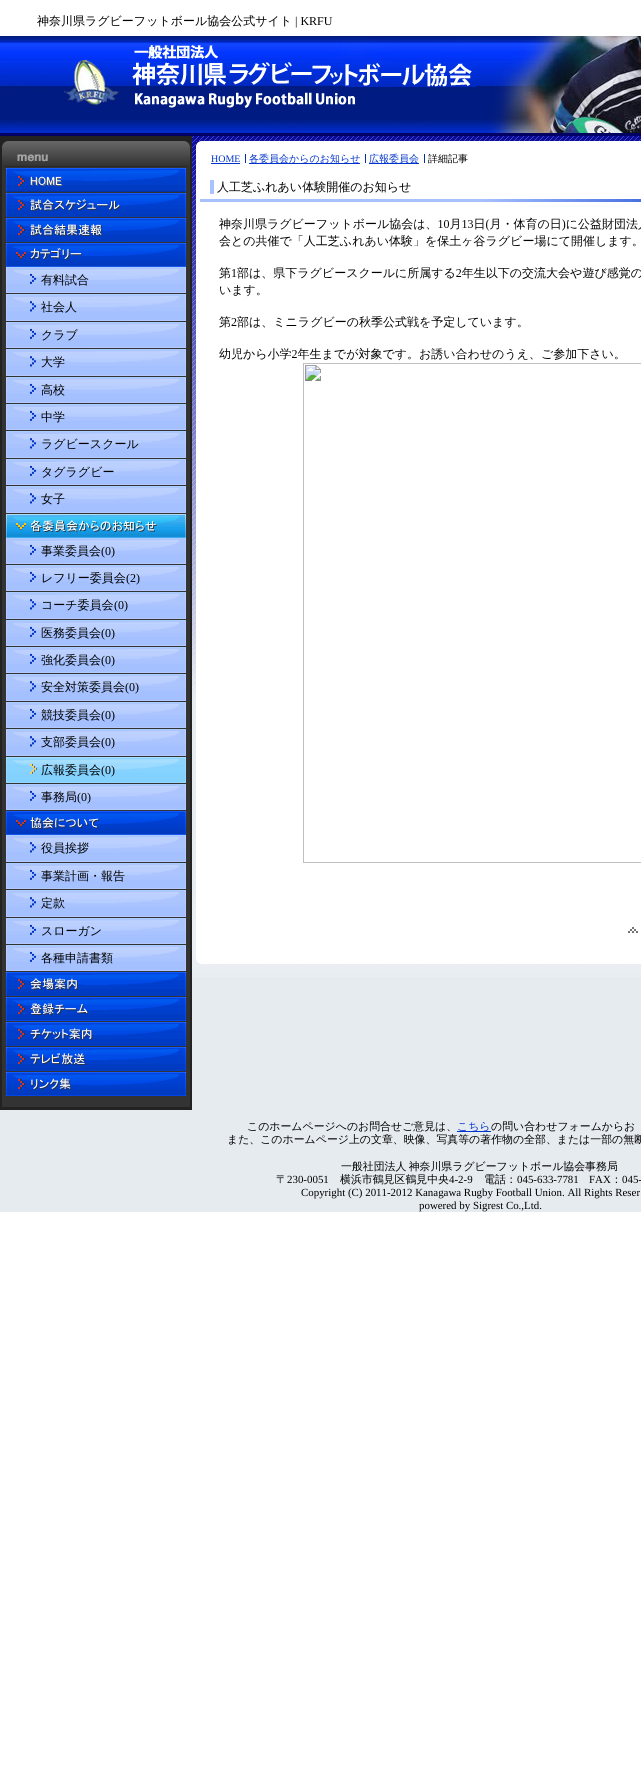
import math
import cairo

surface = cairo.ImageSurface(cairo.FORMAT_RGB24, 641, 1791)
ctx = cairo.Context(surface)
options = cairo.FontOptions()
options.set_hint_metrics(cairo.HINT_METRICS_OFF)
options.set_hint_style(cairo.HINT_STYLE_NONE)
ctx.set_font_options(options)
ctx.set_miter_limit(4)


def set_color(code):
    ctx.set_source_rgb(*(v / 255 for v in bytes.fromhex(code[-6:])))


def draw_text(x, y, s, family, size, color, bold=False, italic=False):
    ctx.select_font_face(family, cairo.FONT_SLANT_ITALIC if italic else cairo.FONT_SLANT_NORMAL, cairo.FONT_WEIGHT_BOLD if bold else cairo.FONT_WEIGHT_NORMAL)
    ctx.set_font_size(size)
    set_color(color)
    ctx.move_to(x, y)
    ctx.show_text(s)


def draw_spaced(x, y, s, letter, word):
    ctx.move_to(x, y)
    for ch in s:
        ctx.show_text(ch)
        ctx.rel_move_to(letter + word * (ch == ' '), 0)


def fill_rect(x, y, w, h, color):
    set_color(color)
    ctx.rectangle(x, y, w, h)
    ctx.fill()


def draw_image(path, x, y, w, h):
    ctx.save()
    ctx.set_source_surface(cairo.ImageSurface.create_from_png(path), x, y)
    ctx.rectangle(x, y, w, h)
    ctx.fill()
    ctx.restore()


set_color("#ffffff")
ctx.paint()
fill_rect(0, 977, 641, 235, "#e6ebf0")
draw_image("assets/img1.png", 192, 136, 449, 841)
draw_image("assets/img2.png", 0, 133, 641, 3)
draw_text(37, 25, "神奈川県ラグビーフットボール協会公式サイト", "WenQuanYi Zen Hei Medium", 12, "#000000")
draw_text(295, 25, "| KRFU", "Liberation Serif", 12, "#000000")
draw_image("assets/img3.png", 0, 36, 641, 97)
draw_image("assets/img4.png", 196, 959, 445, 5)
fill_rect(196, 141, 445, 818, "#ffffff")
draw_image("assets/img5.png", 196, 141, 5, 5)
fill_rect(245, 154, 1, 9, "#003399")
draw_text(211, 162, "HOME", "Liberation Serif", 10, "#0033cc")
fill_rect(211, 163, 29, 1, "#0033cc")
fill_rect(365, 154, 1, 9, "#003399")
fill_rect(249, 163, 111, 1, "#0033cc")
draw_text(249, 162, "各委員会からのお知らせ", "WenQuanYi Zen Hei Medium", 10, "#0033cc")
fill_rect(424, 154, 1, 9, "#003399")
fill_rect(369, 163, 50, 1, "#0033cc")
draw_text(369, 162, "広報委員会", "WenQuanYi Zen Hei Medium", 10, "#0033cc")
draw_text(428, 162, "詳細記事", "WenQuanYi Zen Hei Medium", 10, "#000000")
draw_image("assets/img6.png", 200, 199, 441, 3)
draw_text(217, 191, "人工芝ふれあい体験開催のお知らせ", "WenQuanYi Zen Hei Medium", 12, "#000000")
fill_rect(210, 180, 4, 14, "#a8c3ff")
draw_image("assets/img7.png", 219, 217, 422, 646)
draw_image("assets/img8.png", 628, 927, 10, 6)
fill_rect(0, 136, 192, 974, "#222222")
fill_rect(2, 168, 188, 939, "#333333")
draw_image("assets/img9.png", 2, 141, 188, 27)
draw_image("assets/img10.png", 6, 168, 180, 24)
draw_image("assets/img11.png", 6, 193, 180, 24)
draw_image("assets/img12.png", 6, 218, 180, 24)
draw_image("assets/img13.png", 6, 243, 180, 24)
draw_image("assets/img14.png", 6, 267, 180, 25)
fill_rect(6, 292, 180, 1, "#b3c9ff")
draw_text(41, 284, "有料試合", "WenQuanYi Zen Hei Medium", 12, "#000000")
draw_image("assets/img15.png", 6, 294, 180, 26)
fill_rect(6, 320, 180, 1, "#b3c9ff")
draw_text(41, 311, "社会人", "WenQuanYi Zen Hei Medium", 12, "#000000")
draw_image("assets/img14.png", 6, 322, 180, 25)
fill_rect(6, 347, 180, 1, "#b3c9ff")
draw_text(41, 339, "クラブ", "WenQuanYi Zen Hei Medium", 12, "#000000")
draw_image("assets/img15.png", 6, 349, 180, 26)
fill_rect(6, 375, 180, 1, "#b3c9ff")
draw_text(41, 366, "大学", "WenQuanYi Zen Hei Medium", 12, "#000000")
draw_image("assets/img14.png", 6, 377, 180, 25)
fill_rect(6, 402, 180, 1, "#b3c9ff")
draw_text(41, 394, "高校", "WenQuanYi Zen Hei Medium", 12, "#000000")
draw_image("assets/img14.png", 6, 404, 180, 25)
fill_rect(6, 429, 180, 1, "#b3c9ff")
draw_text(41, 421, "中学", "WenQuanYi Zen Hei Medium", 12, "#000000")
draw_image("assets/img15.png", 6, 431, 180, 26)
fill_rect(6, 457, 180, 1, "#b3c9ff")
draw_text(41, 448, "ラグビースクール", "WenQuanYi Zen Hei Medium", 12, "#000000")
draw_image("assets/img14.png", 6, 459, 180, 25)
fill_rect(6, 484, 180, 1, "#b3c9ff")
draw_text(41, 476, "タグラグビー", "WenQuanYi Zen Hei Medium", 12, "#000000")
draw_image("assets/img15.png", 6, 486, 180, 26)
fill_rect(6, 512, 180, 1, "#b3c9ff")
draw_text(41, 503, "女子", "WenQuanYi Zen Hei Medium", 12, "#000000")
draw_image("assets/img16.png", 6, 514, 180, 24)
draw_image("assets/img14.png", 6, 538, 180, 25)
fill_rect(6, 563, 180, 1, "#b3c9ff")
draw_text(41, 555, "事業委員会", "WenQuanYi Zen Hei Medium", 12, "#000000")
draw_text(101, 555, "(0)", "Liberation Serif", 12, "#000000")
draw_image("assets/img14.png", 6, 565, 180, 25)
fill_rect(6, 590, 180, 1, "#b3c9ff")
draw_text(41, 582, "レフリー委員会", "WenQuanYi Zen Hei Medium", 12, "#000000")
draw_text(126, 582, "(2)", "Liberation Serif", 12, "#000000")
draw_image("assets/img15.png", 6, 592, 180, 26)
fill_rect(6, 618, 180, 1, "#b3c9ff")
draw_text(41, 609, "コーチ委員会", "WenQuanYi Zen Hei Medium", 12, "#000000")
draw_text(114, 609, "(0)", "Liberation Serif", 12, "#000000")
draw_image("assets/img14.png", 6, 620, 180, 25)
fill_rect(6, 645, 180, 1, "#b3c9ff")
draw_text(41, 637, "医務委員会", "WenQuanYi Zen Hei Medium", 12, "#000000")
draw_text(101, 637, "(0)", "Liberation Serif", 12, "#000000")
draw_image("assets/img14.png", 6, 647, 180, 25)
fill_rect(6, 672, 180, 1, "#b3c9ff")
draw_text(41, 664, "強化委員会", "WenQuanYi Zen Hei Medium", 12, "#000000")
draw_text(101, 664, "(0)", "Liberation Serif", 12, "#000000")
draw_image("assets/img15.png", 6, 674, 180, 26)
fill_rect(6, 700, 180, 1, "#b3c9ff")
draw_text(41, 691, "安全対策委員会", "WenQuanYi Zen Hei Medium", 12, "#000000")
draw_text(125, 691, "(0)", "Liberation Serif", 12, "#000000")
draw_image("assets/img14.png", 6, 702, 180, 25)
fill_rect(6, 727, 180, 1, "#b3c9ff")
draw_text(41, 719, "競技委員会", "WenQuanYi Zen Hei Medium", 12, "#000000")
draw_text(101, 719, "(0)", "Liberation Serif", 12, "#000000")
draw_image("assets/img15.png", 6, 729, 180, 26)
fill_rect(6, 755, 180, 1, "#b3c9ff")
draw_text(41, 746, "支部委員会", "WenQuanYi Zen Hei Medium", 12, "#000000")
draw_text(101, 746, "(0)", "Liberation Serif", 12, "#000000")
draw_image("assets/img17.png", 6, 757, 180, 25)
fill_rect(6, 782, 180, 1, "#93d7ff")
draw_text(41, 774, "広報委員会", "WenQuanYi Zen Hei Medium", 12, "#000000")
draw_text(101, 774, "(0)", "Liberation Serif", 12, "#000000")
draw_image("assets/img14.png", 6, 784, 180, 25)
fill_rect(6, 809, 180, 1, "#b3c9ff")
draw_text(41, 801, "事務局", "WenQuanYi Zen Hei Medium", 12, "#000000")
draw_text(77, 801, "(0)", "Liberation Serif", 12, "#000000")
draw_image("assets/img18.png", 6, 811, 180, 24)
draw_image("assets/img15.png", 6, 835, 180, 26)
fill_rect(6, 861, 180, 1, "#b3c9ff")
draw_text(41, 852, "役員挨拶", "WenQuanYi Zen Hei Medium", 12, "#000000")
draw_image("assets/img14.png", 6, 863, 180, 25)
fill_rect(6, 888, 180, 1, "#b3c9ff")
draw_text(41, 880, "事業計画・報告", "WenQuanYi Zen Hei Medium", 12, "#000000")
draw_image("assets/img15.png", 6, 890, 180, 26)
fill_rect(6, 916, 180, 1, "#b3c9ff")
draw_text(41, 907, "定款", "WenQuanYi Zen Hei Medium", 12, "#000000")
draw_image("assets/img14.png", 6, 918, 180, 25)
fill_rect(6, 943, 180, 1, "#b3c9ff")
draw_text(41, 935, "スローガン", "WenQuanYi Zen Hei Medium", 12, "#000000")
draw_image("assets/img14.png", 6, 945, 180, 25)
fill_rect(6, 970, 180, 1, "#b3c9ff")
draw_text(41, 962, "各種申請書類", "WenQuanYi Zen Hei Medium", 12, "#000000")
draw_image("assets/img19.png", 6, 972, 180, 24)
draw_image("assets/img20.png", 6, 997, 180, 24)
draw_image("assets/img21.png", 6, 1022, 180, 24)
draw_image("assets/img22.png", 6, 1047, 180, 24)
draw_image("assets/img23.png", 6, 1072, 180, 24)
draw_text(247, 1130, "このホームページへのお問合せご意見は、", "WenQuanYi Zen Hei Medium", 10.9, "#000000")
fill_rect(457, 1131, 34, 1, "#0033cc")
draw_text(457, 1130, "こちら", "WenQuanYi Zen Hei Medium", 10.9, "#0033cc")
draw_text(491, 1130, "の問い合わせフォームからお", "WenQuanYi Zen Hei Medium", 10.9, "#000000")
draw_text(227, 1143, "また、このホームページ上の文章、映像、写真等の著作物の全部、または一部の無断", "WenQuanYi Zen Hei Medium", 10.9, "#000000")
draw_spaced(341, 1170, "一般社団法人 神奈川県ラグビーフットボール協会事務局", 0, -1)
draw_text(276, 1183, "〒", "WenQuanYi Zen Hei Medium", 10.9, "#000000")
draw_text(287, 1183, "230-0051", "Liberation Serif", 10.9, "#000000")
draw_text(340, 1183, "横浜市鶴見区鶴見中央", "WenQuanYi Zen Hei Medium", 10.9, "#000000")
draw_text(449, 1183, "4-2-9", "Liberation Serif", 10.9, "#000000")
draw_text(484, 1183, "電話：", "WenQuanYi Zen Hei Medium", 10.9, "#000000")
draw_text(517, 1183, "045-633-7781", "Liberation Serif", 10.9, "#000000")
draw_text(589, 1183, "FAX", "Liberation Serif", 10.9, "#000000")
draw_text(611, 1183, "：", "WenQuanYi Zen Hei Medium", 10.9, "#000000")
draw_text(622, 1183, "045-", "Liberation Serif", 10.9, "#000000")
draw_text(301, 1196, "Copyright (C) 2011-2012 Kanagawa Rugby Football Union. All Rights Reser", "Liberation Serif", 10.9, "#000000")
draw_text(419, 1209, "powered by Sigrest Co.,Ltd.", "Liberation Serif", 10.9, "#000000")
surface.write_to_png("output.png")
